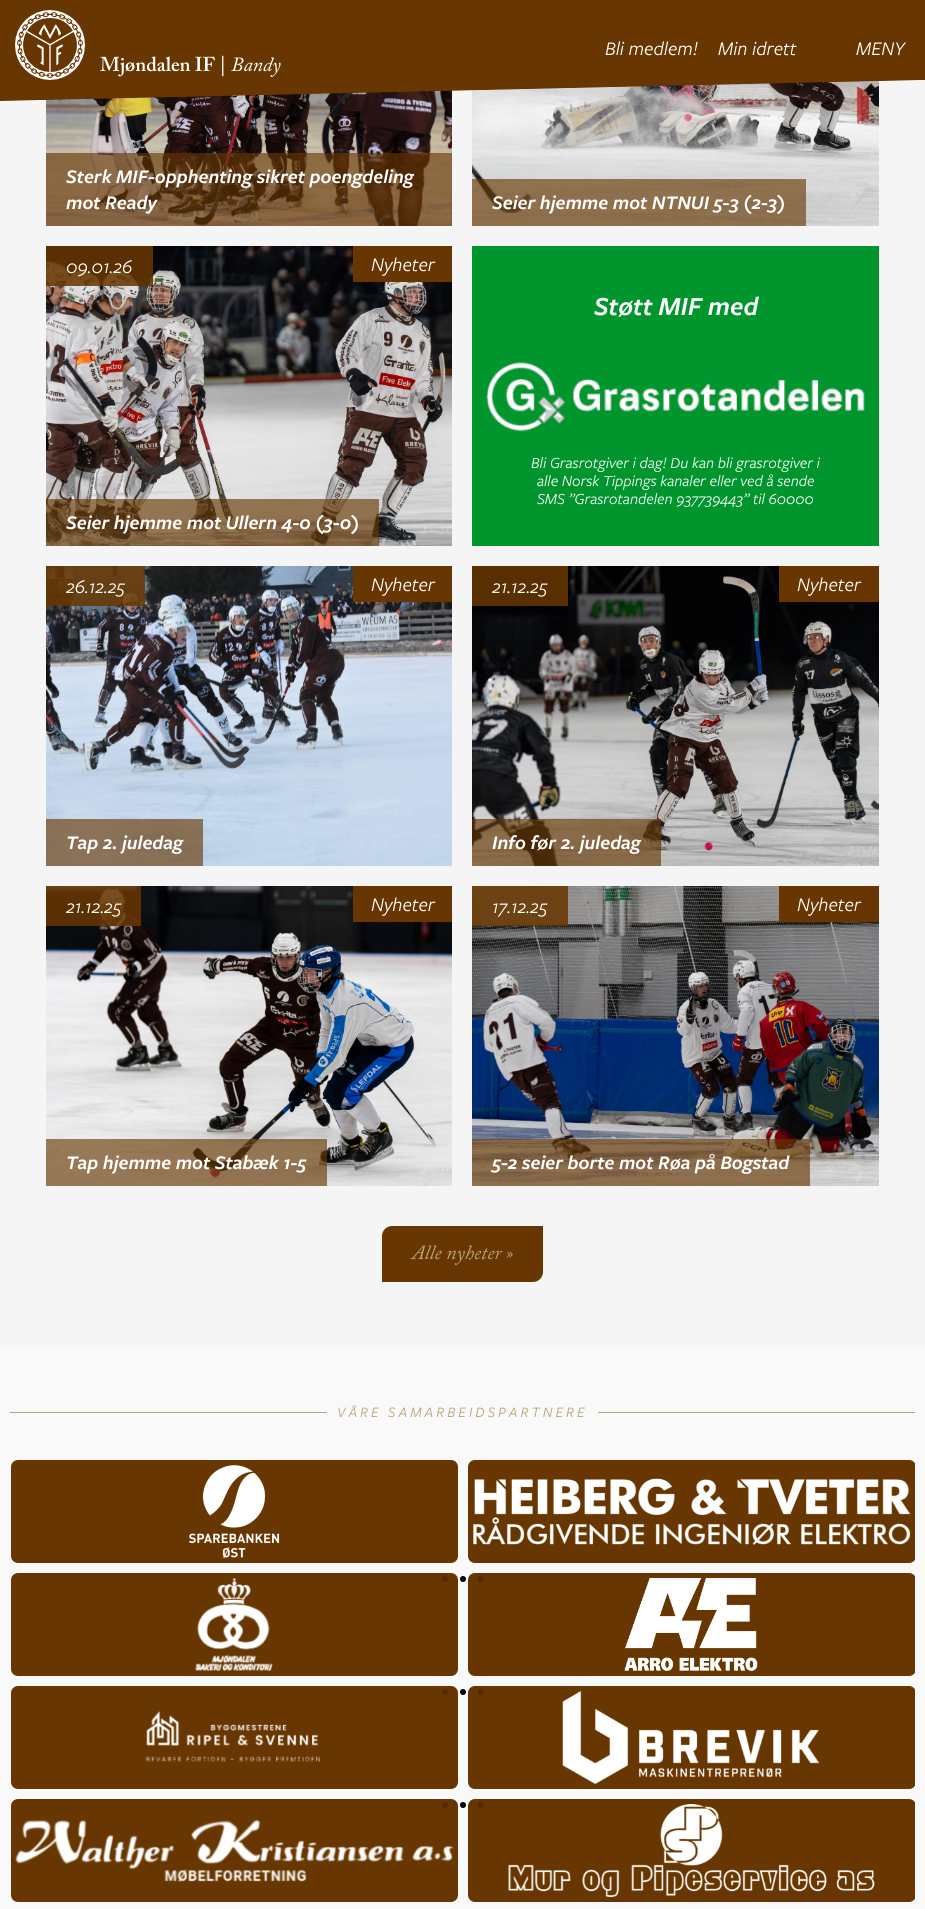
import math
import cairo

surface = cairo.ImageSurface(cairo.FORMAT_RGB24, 925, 1909)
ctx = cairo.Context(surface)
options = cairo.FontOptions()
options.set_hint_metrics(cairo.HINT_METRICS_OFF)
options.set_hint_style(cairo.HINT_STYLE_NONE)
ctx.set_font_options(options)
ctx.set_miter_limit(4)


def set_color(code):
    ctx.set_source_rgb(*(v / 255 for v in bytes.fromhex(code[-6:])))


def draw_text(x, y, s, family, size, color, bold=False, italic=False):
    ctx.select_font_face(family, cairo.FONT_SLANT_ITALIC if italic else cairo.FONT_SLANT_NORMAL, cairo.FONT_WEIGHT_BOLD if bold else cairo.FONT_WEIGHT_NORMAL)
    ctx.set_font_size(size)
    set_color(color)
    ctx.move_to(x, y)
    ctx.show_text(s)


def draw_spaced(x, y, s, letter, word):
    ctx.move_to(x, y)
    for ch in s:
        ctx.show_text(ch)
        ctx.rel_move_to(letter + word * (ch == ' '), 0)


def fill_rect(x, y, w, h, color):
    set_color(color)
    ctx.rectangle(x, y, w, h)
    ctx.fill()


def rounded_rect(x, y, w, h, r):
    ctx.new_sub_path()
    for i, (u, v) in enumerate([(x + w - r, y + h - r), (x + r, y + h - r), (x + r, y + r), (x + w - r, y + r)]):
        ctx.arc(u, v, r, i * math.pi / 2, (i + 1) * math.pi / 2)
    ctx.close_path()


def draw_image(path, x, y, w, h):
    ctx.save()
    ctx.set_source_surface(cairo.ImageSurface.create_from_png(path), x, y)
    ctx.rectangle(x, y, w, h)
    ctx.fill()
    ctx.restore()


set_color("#f5f5f5")
ctx.paint()
fill_rect(0, 0, 925, 75, "#683600")
draw_text(605, 55, "Bli medlem!", "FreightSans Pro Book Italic", 20, "#ffffff", italic=True)
draw_text(718, 55, "Min idrett", "FreightSans Pro Book Italic", 20, "#ffffff", italic=True)
draw_text(856, 55, "MENY", "FreightSans Pro Book Italic", 20, "#ffffff", italic=True)
draw_image("assets/img2.png", 46, 90, 406, 136)
draw_image("assets/img3.png", 472, 81, 407, 145)
gradient = cairo.LinearGradient(462, 68, 463, 112)
gradient.add_color_stop_rgba(0.5, 0.408, 0.212, 0, 1)
gradient.add_color_stop_rgba(0.52, 0.408, 0.212, 0, 0)
ctx.set_source(gradient)
ctx.rectangle(0, 75, 925, 26)
ctx.fill()
draw_image("assets/img1.png", 15, 10, 70, 70)
draw_text(100, 71, "Mjøndalen IF |", "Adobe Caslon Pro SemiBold", 20, "#ffffff")
draw_text(231, 71, "Bandy", "Adobe Caslon Pro", 20, "#ffffff", italic=True)
ctx.set_source_rgba(0.408, 0.212, 0, 0.63)
ctx.rectangle(46, 153, 406, 73)
ctx.fill()
draw_text(66, 183, "Sterk MIF-opphenting sikret poengdeling", "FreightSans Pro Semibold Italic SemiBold", 20, "#ffffff", italic=True)
draw_text(66, 209, "mot Ready", "FreightSans Pro Semibold Italic SemiBold", 20, "#ffffff", italic=True)
ctx.set_source_rgba(0.408, 0.212, 0, 0.63)
ctx.rectangle(472, 179, 334, 47)
ctx.fill()
draw_text(492, 209, "Seier hjemme mot NTNUI 5-3 (2-3)", "FreightSans Pro Semibold Italic SemiBold", 20, "#ffffff", italic=True)
draw_image("assets/img4.png", 46, 246, 406, 300)
fill_rect(353, 246, 99, 36, "#683600")
draw_text(371, 271, "Nyheter", "FreightSans Pro Book Italic", 20, "#ffffff", italic=True)
ctx.set_source_rgba(0.408, 0.212, 0, 0.63)
ctx.rectangle(46, 499, 333, 47)
ctx.fill()
draw_text(66, 529, "Seier hjemme mot Ullern 4-0 (3-0)", "FreightSans Pro Semibold Italic SemiBold", 20, "#ffffff", italic=True)
ctx.set_source_rgba(0.408, 0.212, 0, 0.63)
ctx.rectangle(46, 246, 107, 40)
ctx.fill()
ctx.rectangle(46, 246, 107, 40)
ctx.fill()
draw_text(66, 273, "09.01.26", "FreightSans Pro Book Italic", 20, "#ffffff", italic=True)
fill_rect(472, 246, 407, 300, "#00962d")
draw_image("assets/img5.png", 486, 361, 379, 71)
draw_text(594, 315, "Støtt MIF med", "FreightSans Pro Semibold Italic SemiBold", 27, "#ffffff", italic=True)
draw_text(531, 468, "Bli Grasrotgiver i dag! Du kan bli grasrotgiver i", "FreightSans Pro Book Italic", 16, "#ffffff", italic=True)
draw_text(537, 486, "alle Norsk Tippings kanaler eller ved å sende", "FreightSans Pro Book Italic", 16, "#ffffff", italic=True)
draw_text(537, 504, "SMS ”Grasrotandelen 937739443” til 60000", "FreightSans Pro Book Italic", 16, "#ffffff", italic=True)
draw_image("assets/img6.png", 46, 566, 406, 300)
fill_rect(353, 566, 99, 36, "#683600")
draw_text(371, 591, "Nyheter", "FreightSans Pro Book Italic", 20, "#ffffff", italic=True)
ctx.set_source_rgba(0.408, 0.212, 0, 0.63)
ctx.rectangle(46, 819, 157, 47)
ctx.fill()
draw_text(66, 849, "Tap 2. juledag", "FreightSans Pro Semibold Italic SemiBold", 20, "#ffffff", italic=True)
ctx.set_source_rgba(0.408, 0.212, 0, 0.63)
ctx.rectangle(46, 566, 99, 40)
ctx.fill()
ctx.rectangle(46, 566, 99, 40)
ctx.fill()
draw_text(66, 593, "26.12.25", "FreightSans Pro Book Italic", 20, "#ffffff", italic=True)
draw_image("assets/img7.png", 472, 566, 407, 300)
fill_rect(779, 566, 100, 36, "#683600")
draw_text(797, 591, "Nyheter", "FreightSans Pro Book Italic", 20, "#ffffff", italic=True)
ctx.set_source_rgba(0.408, 0.212, 0, 0.63)
ctx.rectangle(472, 819, 189, 47)
ctx.fill()
draw_text(492, 849, "Info før 2. juledag", "FreightSans Pro Semibold Italic SemiBold", 20, "#ffffff", italic=True)
ctx.set_source_rgba(0.408, 0.212, 0, 0.63)
ctx.rectangle(472, 566, 96, 40)
ctx.fill()
ctx.rectangle(472, 566, 96, 40)
ctx.fill()
draw_text(492, 593, "21.12.25", "FreightSans Pro Book Italic", 20, "#ffffff", italic=True)
draw_image("assets/img8.png", 46, 886, 406, 300)
fill_rect(353, 886, 99, 36, "#683600")
draw_text(371, 911, "Nyheter", "FreightSans Pro Book Italic", 20, "#ffffff", italic=True)
ctx.set_source_rgba(0.408, 0.212, 0, 0.63)
ctx.rectangle(46, 1139, 281, 47)
ctx.fill()
draw_text(66, 1169, "Tap hjemme mot Stabæk 1-5", "FreightSans Pro Semibold Italic SemiBold", 20, "#ffffff", italic=True)
ctx.set_source_rgba(0.408, 0.212, 0, 0.63)
ctx.rectangle(46, 886, 95, 40)
ctx.fill()
ctx.rectangle(46, 886, 95, 40)
ctx.fill()
draw_text(66, 913, "21.12.25", "FreightSans Pro Book Italic", 20, "#ffffff", italic=True)
draw_image("assets/img9.png", 472, 886, 407, 300)
fill_rect(779, 886, 100, 36, "#683600")
draw_text(797, 911, "Nyheter", "FreightSans Pro Book Italic", 20, "#ffffff", italic=True)
ctx.set_source_rgba(0.408, 0.212, 0, 0.63)
ctx.rectangle(472, 1139, 338, 47)
ctx.fill()
draw_text(492, 1169, "5-2 seier borte mot Røa på Bogstad", "FreightSans Pro Semibold Italic SemiBold", 20, "#ffffff", italic=True)
ctx.set_source_rgba(0.408, 0.212, 0, 0.63)
ctx.rectangle(472, 886, 96, 40)
ctx.fill()
ctx.rectangle(472, 886, 96, 40)
ctx.fill()
draw_text(492, 913, "17.12.25", "FreightSans Pro Book Italic", 20, "#ffffff", italic=True)
set_color("#683600")
ctx.new_path()
ctx.move_to(392, 1226)
ctx.line_to(543, 1226)
ctx.line_to(543, 1272)
ctx.curve_to(543, 1277.5, 538.5, 1282, 533, 1282)
ctx.line_to(382, 1282)
ctx.line_to(382, 1236)
ctx.curve_to(382, 1230.5, 386.5, 1226, 392, 1226)
ctx.close_path()
ctx.fill()
draw_text(412, 1259, "Alle nyheter »", "Adobe Caslon Pro", 20, "#b7a472", italic=True)
fill_rect(0, 1345, 925, 564, "#f9f9f9")
fill_rect(10, 1412, 317, 1, "#b7a472")
ctx.select_font_face("FreightSans Pro Book Italic", cairo.FONT_SLANT_ITALIC)
ctx.set_font_size(15)
draw_spaced(337, 1417, "VÅRE SAMARBEIDSPARTNERE", 3, 0)
fill_rect(598, 1412, 317, 1, "#b7a472")
set_color("#683600")
rounded_rect(11, 1460, 447, 103, 7)
ctx.fill()
draw_image("assets/img10.png", 189, 1465, 91, 93)
ctx.save()
ctx.rectangle(10, 1460, 905, 133)
ctx.clip()
rounded_rect(468, 1460, 448, 103, 7)
ctx.fill()
ctx.restore()
draw_image("assets/img11.png", 473, 1478, 438, 67)
rounded_rect(11, 1573, 447, 103, 7)
ctx.fill()
set_color("#532b00")
ctx.arc(445, 1579, 3, 0, 2 * math.pi)
ctx.fill()
set_color("#000000")
ctx.arc(463, 1579, 3, 0, 2 * math.pi)
ctx.fill()
ctx.save()
ctx.rectangle(10, 1573, 905, 133)
ctx.clip()
set_color("#683600")
rounded_rect(468, 1573, 448, 103, 7)
ctx.fill()
ctx.restore()
set_color("#532b00")
ctx.arc(481, 1579, 3, 0, 2 * math.pi)
ctx.fill()
draw_image("assets/img12.png", 195, 1578, 78, 93)
draw_image("assets/img13.png", 624, 1578, 134, 93)
set_color("#683600")
rounded_rect(11, 1686, 447, 103, 7)
ctx.fill()
set_color("#532b00")
ctx.arc(445, 1692, 3, 0, 2 * math.pi)
ctx.fill()
set_color("#000000")
ctx.arc(463, 1692, 3, 0, 2 * math.pi)
ctx.fill()
ctx.save()
ctx.rectangle(10, 1686, 905, 133)
ctx.clip()
set_color("#683600")
rounded_rect(468, 1686, 448, 103, 7)
ctx.fill()
ctx.restore()
set_color("#532b00")
ctx.arc(481, 1692, 3, 0, 2 * math.pi)
ctx.fill()
draw_image("assets/img14.png", 145, 1711, 176, 51)
draw_image("assets/img15.png", 562, 1691, 258, 93)
set_color("#683600")
rounded_rect(11, 1799, 447, 103, 7)
ctx.fill()
set_color("#532b00")
ctx.arc(445, 1805, 3, 0, 2 * math.pi)
ctx.fill()
set_color("#000000")
ctx.arc(463, 1805, 3, 0, 2 * math.pi)
ctx.fill()
ctx.save()
ctx.rectangle(10, 1799, 905, 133)
ctx.clip()
set_color("#683600")
rounded_rect(468, 1799, 448, 103, 7)
ctx.fill()
ctx.restore()
set_color("#532b00")
ctx.arc(481, 1805, 3, 0, 2 * math.pi)
ctx.fill()
draw_image("assets/img16.png", 15, 1819, 439, 63)
draw_image("assets/img17.png", 508, 1804, 367, 93)
surface.write_to_png("output.png")
